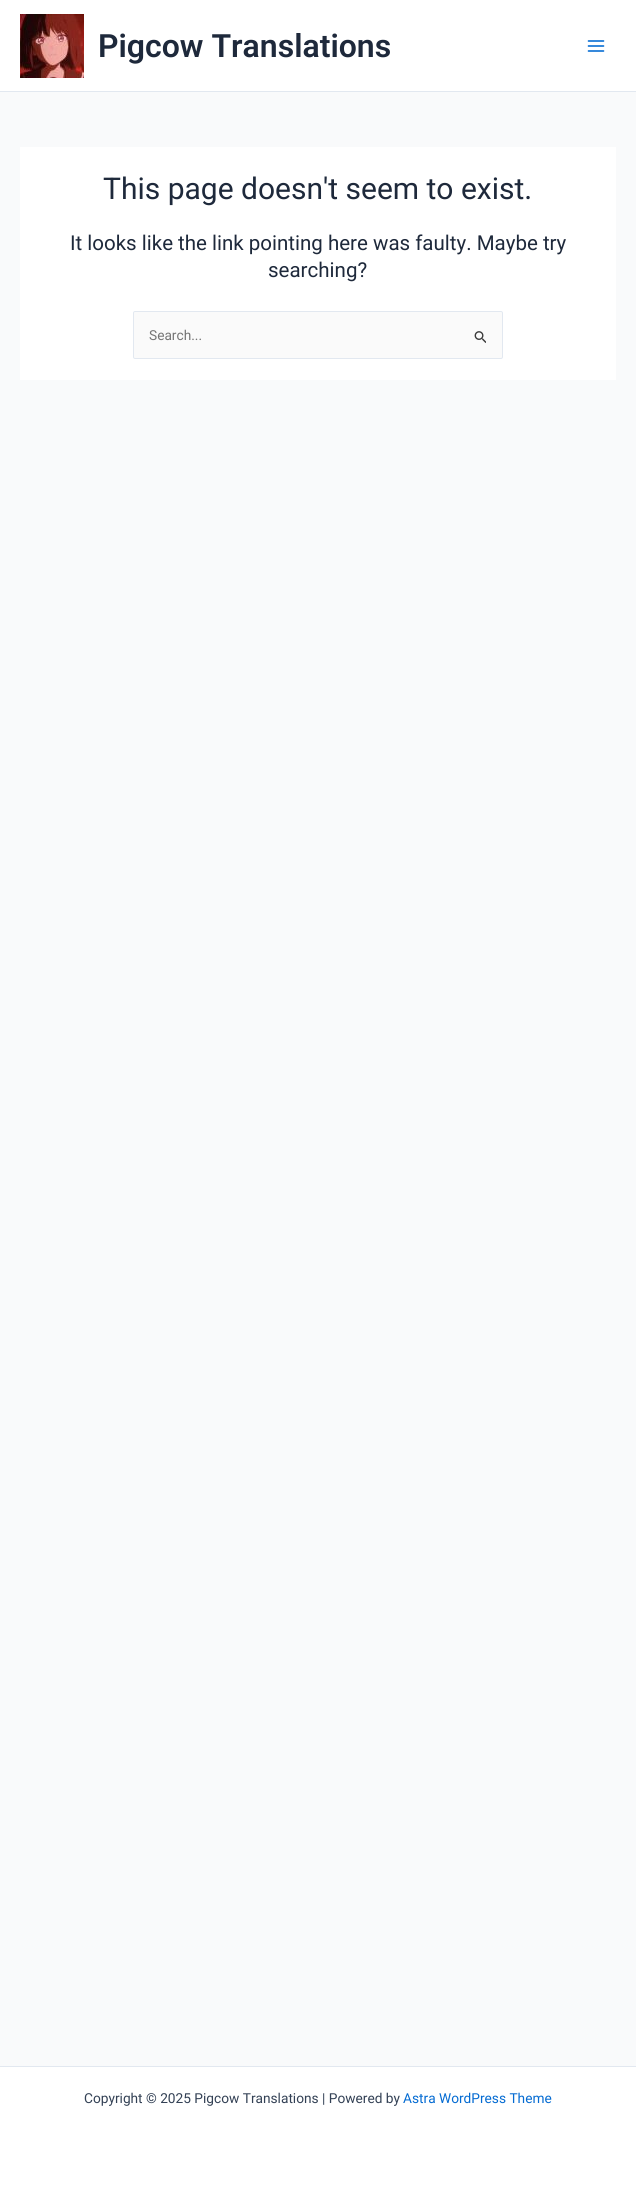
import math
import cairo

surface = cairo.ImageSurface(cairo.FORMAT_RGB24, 636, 2187)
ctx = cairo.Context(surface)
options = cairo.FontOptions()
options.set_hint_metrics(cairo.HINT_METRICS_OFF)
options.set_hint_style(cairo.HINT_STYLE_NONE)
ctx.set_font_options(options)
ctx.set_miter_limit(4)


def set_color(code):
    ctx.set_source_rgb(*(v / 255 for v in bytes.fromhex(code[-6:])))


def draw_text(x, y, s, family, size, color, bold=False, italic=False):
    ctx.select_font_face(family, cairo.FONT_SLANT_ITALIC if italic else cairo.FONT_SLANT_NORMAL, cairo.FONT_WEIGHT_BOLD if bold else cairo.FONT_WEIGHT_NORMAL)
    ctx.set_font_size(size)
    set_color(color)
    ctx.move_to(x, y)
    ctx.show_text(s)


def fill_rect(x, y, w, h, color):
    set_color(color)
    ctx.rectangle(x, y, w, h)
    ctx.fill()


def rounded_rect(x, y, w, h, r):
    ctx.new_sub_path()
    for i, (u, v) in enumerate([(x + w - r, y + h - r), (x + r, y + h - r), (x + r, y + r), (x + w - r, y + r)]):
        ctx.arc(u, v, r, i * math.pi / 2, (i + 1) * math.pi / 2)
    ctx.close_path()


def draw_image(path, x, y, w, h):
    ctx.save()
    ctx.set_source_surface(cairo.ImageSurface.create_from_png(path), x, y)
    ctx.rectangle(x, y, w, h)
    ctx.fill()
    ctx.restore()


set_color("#f9fafb")
ctx.paint()
fill_rect(0, 0, 636, 91, "#ffffff")
fill_rect(0, 91, 636, 1, "#e2e8f0")
draw_image("assets/img1.png", 20, 14, 64, 64)
draw_text(98, 57, "Pigcow Translations", "Roboto SemiBold", 32, "#1e293b")
draw_image("assets/img2.png", 587, 40, 18, 12)
fill_rect(20, 147, 596, 233, "#ffffff")
draw_text(103, 199, "This page doesn't seem to exist.", "Roboto", 30, "#1e293b")
draw_text(70, 250, "It looks like the link pointing here was faulty. Maybe try", "Roboto", 20.5, "#1e293b")
draw_text(268, 277, "searching?", "Roboto", 20.5, "#1e293b")
set_color("#fafafa")
rounded_rect(133.5, 311.5, 369, 47, 1.5)
ctx.fill_preserve()
set_color("#e2e8f0")
ctx.set_line_width(1)
ctx.stroke()
draw_text(149, 340, "Search...", "Roboto", 13.7, "#757575")
draw_image("assets/img3.png", 474, 331, 12, 12)
fill_rect(0, 2067, 636, 120, "#ffffff")
fill_rect(0, 2066, 636, 1, "#e2e8f0")
draw_text(84, 2103, "Copyright © 2025 Pigcow Translations | Powered by", "Roboto", 13.7, "#334155")
draw_text(403, 2103, "Astra WordPress Theme", "Roboto", 13.7, "#046bd2")
surface.write_to_png("output.png")
